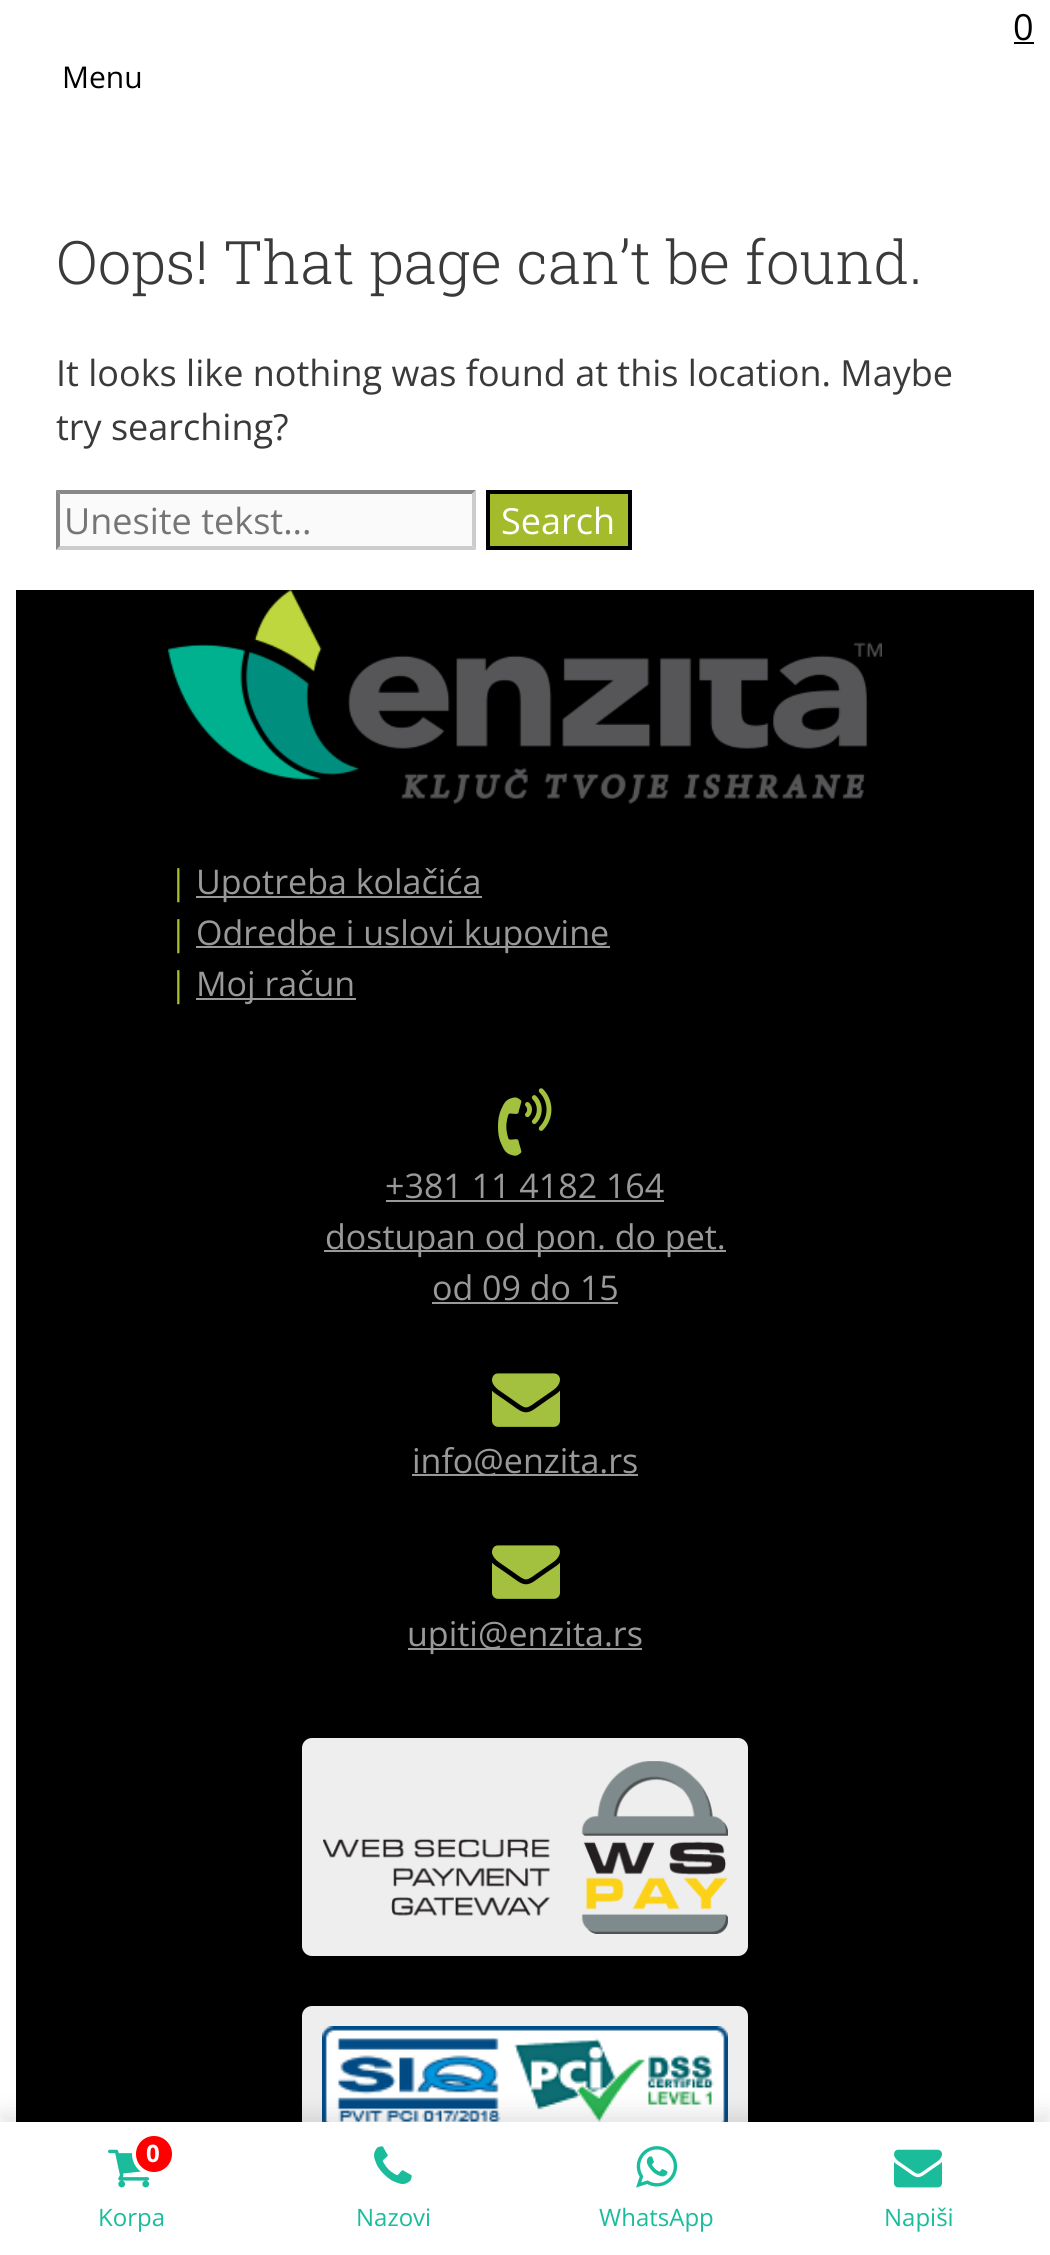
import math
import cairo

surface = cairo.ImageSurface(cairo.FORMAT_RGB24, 1050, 2255)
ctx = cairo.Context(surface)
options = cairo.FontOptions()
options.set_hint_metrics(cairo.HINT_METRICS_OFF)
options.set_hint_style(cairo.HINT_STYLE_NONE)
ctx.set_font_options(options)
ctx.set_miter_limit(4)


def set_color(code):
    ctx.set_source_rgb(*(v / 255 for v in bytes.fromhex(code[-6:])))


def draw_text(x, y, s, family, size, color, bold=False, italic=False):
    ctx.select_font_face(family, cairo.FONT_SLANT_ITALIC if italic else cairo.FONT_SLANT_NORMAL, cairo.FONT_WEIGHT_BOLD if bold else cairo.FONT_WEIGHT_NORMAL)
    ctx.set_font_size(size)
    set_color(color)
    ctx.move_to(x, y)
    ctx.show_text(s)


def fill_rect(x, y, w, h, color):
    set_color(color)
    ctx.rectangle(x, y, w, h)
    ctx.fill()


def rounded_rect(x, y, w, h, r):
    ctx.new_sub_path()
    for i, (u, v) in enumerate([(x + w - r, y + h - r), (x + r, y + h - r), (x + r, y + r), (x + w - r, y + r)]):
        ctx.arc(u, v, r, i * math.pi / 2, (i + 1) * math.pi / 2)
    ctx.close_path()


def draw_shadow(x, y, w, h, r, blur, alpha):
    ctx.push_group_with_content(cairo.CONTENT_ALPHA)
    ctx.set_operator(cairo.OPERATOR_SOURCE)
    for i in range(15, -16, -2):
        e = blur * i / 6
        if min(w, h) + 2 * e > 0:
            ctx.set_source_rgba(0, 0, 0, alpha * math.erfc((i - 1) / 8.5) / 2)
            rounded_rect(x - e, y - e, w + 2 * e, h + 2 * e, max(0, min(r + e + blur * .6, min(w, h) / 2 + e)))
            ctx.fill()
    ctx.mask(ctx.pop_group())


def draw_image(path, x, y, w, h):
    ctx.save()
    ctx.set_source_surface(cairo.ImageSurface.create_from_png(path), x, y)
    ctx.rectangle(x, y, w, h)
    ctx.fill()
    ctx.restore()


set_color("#ffffff")
ctx.paint()
draw_text(1013, 40, "0", "Open Sans", 36, "#000000")
fill_rect(1014, 42, 20, 2, "#000000")
draw_text(62, 88, "Menu", "Open Sans", 30, "#000000")
draw_text(56, 284, "Oops! That page can’t be found.", "Roboto Slab Light", 60, "#3a3a3a")
draw_text(56, 386, "It looks like nothing was found at this location. Maybe", "Open Sans", 36, "#3a3a3a")
draw_text(56, 440, "try searching?", "Open Sans", 36, "#3a3a3a")
fill_rect(56, 490, 420, 60, "#fafafa")
set_color("#888888")
ctx.new_path()
ctx.move_to(56, 490)
ctx.line_to(476, 490)
ctx.line_to(472, 494)
ctx.line_to(60, 494)
ctx.close_path()
ctx.fill()
set_color("#cccccc")
ctx.new_path()
ctx.move_to(476, 490)
ctx.line_to(476, 550)
ctx.line_to(472, 546)
ctx.line_to(472, 494)
ctx.close_path()
ctx.fill()
ctx.new_path()
ctx.move_to(476, 550)
ctx.line_to(56, 550)
ctx.line_to(60, 546)
ctx.line_to(472, 546)
ctx.close_path()
ctx.fill()
set_color("#888888")
ctx.new_path()
ctx.move_to(56, 550)
ctx.line_to(56, 490)
ctx.line_to(60, 494)
ctx.line_to(60, 546)
ctx.close_path()
ctx.fill()
draw_text(64, 534, "Unesite tekst...", "Open Sans", 36, "#757575")
set_color("#a4bc2b")
ctx.rectangle(488, 492, 142, 56)
ctx.fill_preserve()
set_color("#000000")
ctx.set_line_width(4)
ctx.stroke()
draw_text(501, 534, "Search", "Open Sans", 36, "#ffffff")
fill_rect(16, 590, 1018, 1532, "#000000")
draw_image("assets/img1.png", 168, 590, 714, 214)
draw_text(169, 894, "|", "Open Sans", 34, "#a3c02b")
fill_rect(196, 896, 286, 2, "#999999")
draw_text(196, 894, "Upotreba kolačića", "Open Sans", 34, "#999999")
draw_text(169, 945, "|", "Open Sans", 34, "#a3c02b")
fill_rect(196, 946, 414, 2, "#999999")
draw_text(196, 945, "Odredbe i uslovi kupovine", "Open Sans", 34, "#999999")
draw_text(169, 996, "|", "Open Sans", 34, "#a3c02b")
fill_rect(196, 998, 160, 2, "#999999")
draw_text(196, 996, "Mој račun", "Open Sans", 34, "#999999")
draw_image("assets/img2.png", 498, 1088, 54, 68)
draw_text(385, 1198, "+381 11 4182 164", "Open Sans", 34, "#999999")
fill_rect(386, 1200, 278, 2, "#999999")
fill_rect(324, 1250, 402, 2, "#999999")
draw_text(325, 1249, "dostupan od pon. do pet.", "Open Sans", 34, "#999999")
draw_text(432, 1300, "od 09 do 15", "Open Sans", 34, "#999999")
fill_rect(432, 1302, 186, 2, "#999999")
draw_image("assets/img3.png", 492, 1373, 68, 54)
fill_rect(412, 1474, 226, 2, "#999999")
draw_text(412, 1473, "info@enzita.rs", "Open Sans", 34, "#999999")
draw_image("assets/img3.png", 492, 1545, 68, 54)
fill_rect(408, 1648, 234, 2, "#999999")
draw_text(407, 1646, "upiti@enzita.rs", "Open Sans", 34, "#999999")
set_color("#eeeeee")
rounded_rect(302, 1738, 446, 218, 10)
ctx.fill()
draw_image("assets/img4.png", 323, 1761, 405, 173)
rounded_rect(302, 2006, 446, 146, 10)
ctx.fill()
draw_image("assets/img5.png", 322, 2026, 406, 96)
set_color("#000000")
draw_shadow(0, 2112, 1050, 134, 0, 10, 0.1)
fill_rect(0, 2122, 1050, 133, "#ffffff")
draw_image("assets/img6.png", 108, 2149, 42, 39)
set_color("#ff0000")
ctx.arc(154, 2154, 20, 0, 2 * math.pi)
ctx.fill_preserve()
set_color("#ffffff")
ctx.stroke()
draw_text(146, 2162, "0", "Open Sans", 24, "#ffffff", bold=True)
draw_text(98, 2226, "Korpa", "Open Sans", 24, "#1abc9c")
draw_image("assets/img7.png", 374, 2146, 38, 38)
draw_text(356, 2226, "Nazovi", "Open Sans", 24, "#1abc9c")
draw_image("assets/img8.png", 636, 2146, 42, 42)
draw_text(599, 2226, "WhatsApp", "Open Sans", 24, "#1abc9c")
draw_image("assets/img9.png", 894, 2149, 48, 39)
draw_text(884, 2226, "Napiši", "Open Sans", 24, "#1abc9c")
surface.write_to_png("output.png")
